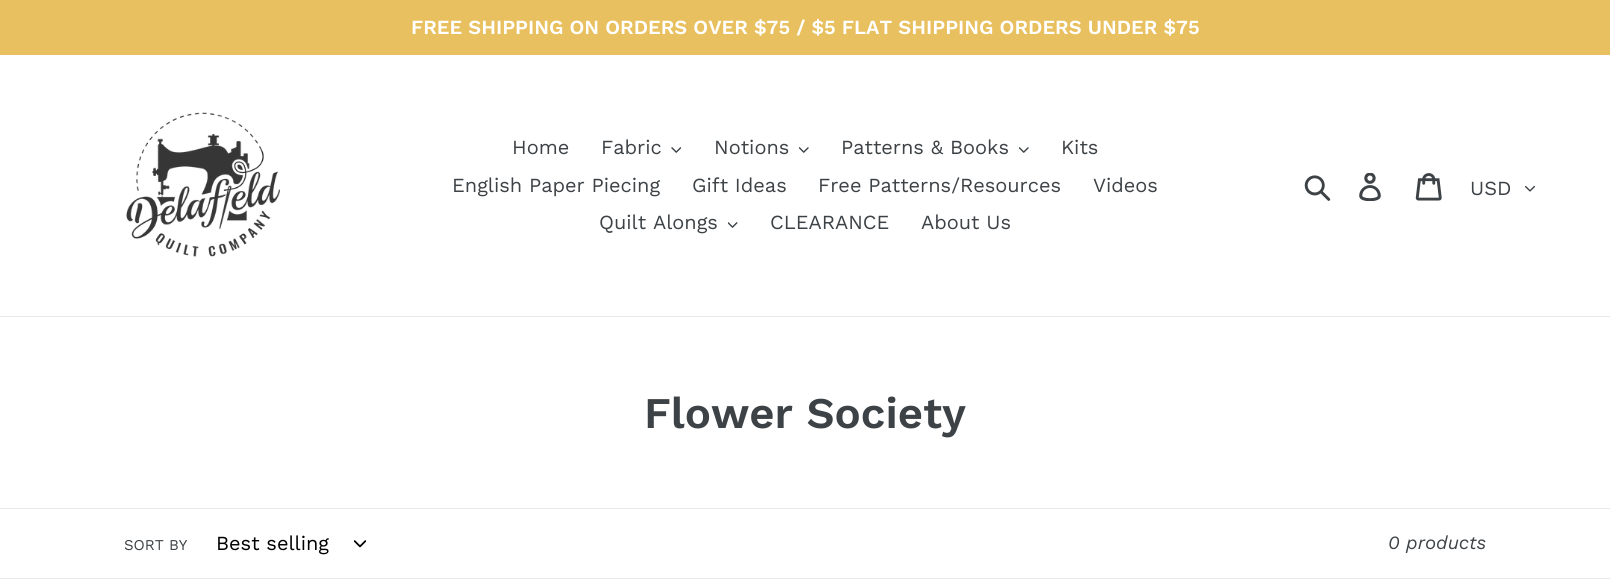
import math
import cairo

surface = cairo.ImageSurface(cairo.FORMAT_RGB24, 1610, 581)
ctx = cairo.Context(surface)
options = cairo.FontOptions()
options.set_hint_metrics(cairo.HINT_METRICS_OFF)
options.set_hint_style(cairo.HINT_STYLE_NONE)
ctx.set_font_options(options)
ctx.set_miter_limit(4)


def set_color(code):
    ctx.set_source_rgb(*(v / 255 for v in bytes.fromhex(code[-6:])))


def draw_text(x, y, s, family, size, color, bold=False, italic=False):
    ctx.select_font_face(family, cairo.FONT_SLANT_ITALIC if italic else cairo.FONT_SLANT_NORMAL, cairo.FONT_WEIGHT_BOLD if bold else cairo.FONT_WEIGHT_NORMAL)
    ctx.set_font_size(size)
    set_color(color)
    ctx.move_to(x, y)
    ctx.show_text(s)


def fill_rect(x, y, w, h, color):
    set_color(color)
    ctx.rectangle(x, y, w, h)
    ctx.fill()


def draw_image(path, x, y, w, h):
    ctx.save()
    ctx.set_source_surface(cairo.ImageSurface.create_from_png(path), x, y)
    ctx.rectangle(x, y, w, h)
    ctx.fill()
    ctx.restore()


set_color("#ffffff")
ctx.paint()
fill_rect(0, 0, 1610, 55, "#e9c05f")
draw_text(411, 34, "FREE SHIPPING ON ORDERS OVER $75 / $5 FLAT SHIPPING ORDERS UNDER $75", "Work Sans SemiBold", 20, "#ffffff")
fill_rect(0, 316, 1610, 1, "#e8e9eb")
draw_image("assets/img1.png", 126, 112, 154, 145)
draw_text(512, 154, "Home", "Work Sans", 20, "#3d4246")
draw_text(601, 154, "Fabric", "Work Sans", 20, "#3d4246")
draw_image("assets/img2.png", 671, 147, 10, 6)
draw_text(714, 154, "Notions", "Work Sans", 20, "#3d4246")
draw_image("assets/img3.png", 799, 147, 10, 6)
draw_text(841, 154, "Patterns & Books", "Work Sans", 20, "#3d4246")
draw_image("assets/img3.png", 1019, 147, 10, 6)
draw_text(1061, 154, "Kits", "Work Sans", 20, "#3d4246")
draw_text(452, 192, "English Paper Piecing", "Work Sans", 20, "#3d4246")
draw_text(692, 192, "Gift Ideas", "Work Sans", 20, "#3d4246")
draw_text(818, 192, "Free Patterns/Resources", "Work Sans", 20, "#3d4246")
draw_text(1093, 192, "Videos", "Work Sans", 20, "#3d4246")
draw_text(599, 229, "Quilt Alongs", "Work Sans", 20, "#3d4246")
draw_image("assets/img4.png", 728, 222, 10, 6)
draw_text(770, 229, "CLEARANCE", "Work Sans", 20, "#3d4246")
draw_text(921, 229, "About Us", "Work Sans", 20, "#3d4246")
draw_image("assets/img5.png", 1304, 175, 27, 26)
draw_image("assets/img6.png", 1359, 173, 22, 28)
draw_image("assets/img7.png", 1415, 173, 27, 28)
draw_text(1470, 195, "USD", "Work Sans", 20, "#3d4246")
draw_image("assets/img8.png", 1525, 185, 10, 7)
draw_text(644, 428, "Flower Society", "Work Sans SemiBold", 43.75, "#3d4246")
fill_rect(0, 508, 1610, 1, "#e8e9eb")
fill_rect(0, 578, 1610, 1, "#e8e9eb")
draw_text(124, 550, "SORT BY", "Work Sans", 15, "#3d4246")
draw_text(216, 550, "Best selling", "Work Sans", 20, "#000000")
draw_image("assets/img9.png", 354, 540, 12, 8)
draw_text(1388, 549, "0 products", "Work Sans", 18.75, "#3d4246", italic=True)
surface.write_to_png("output.png")
